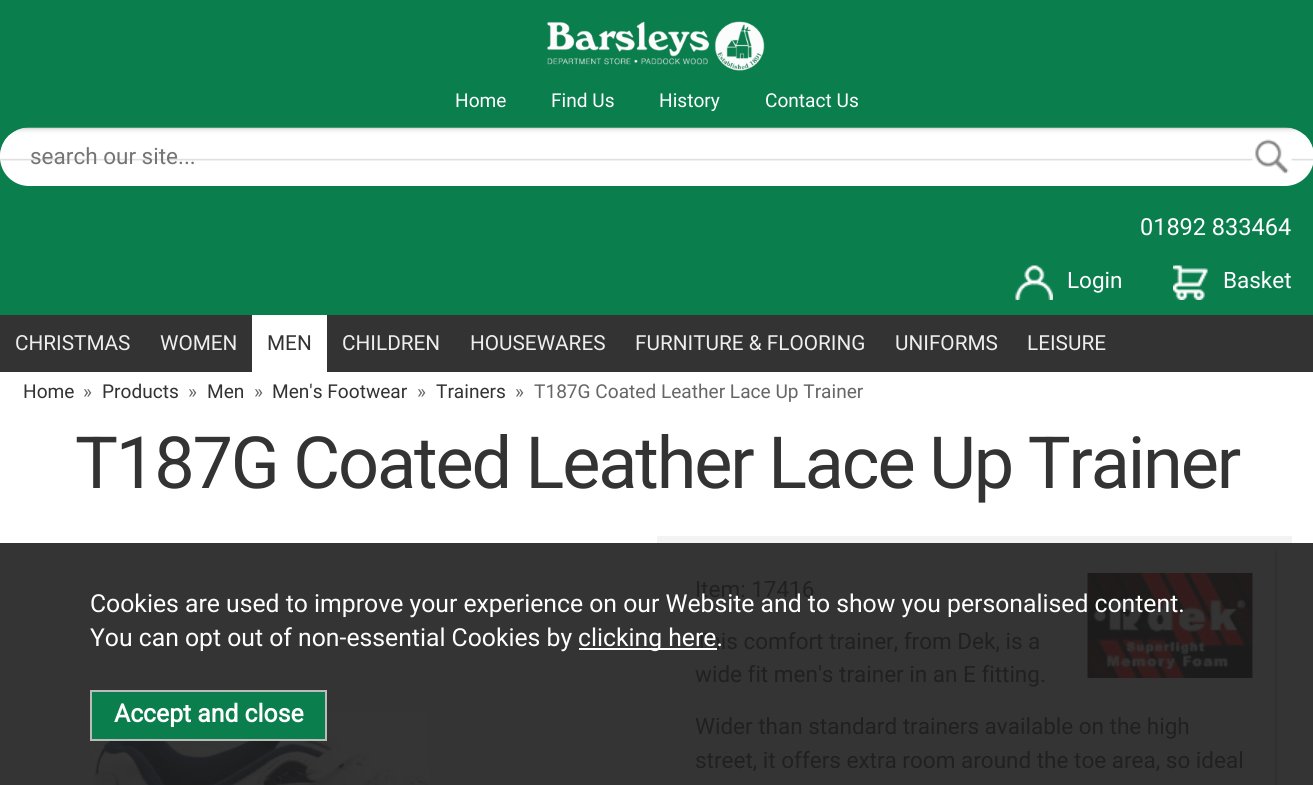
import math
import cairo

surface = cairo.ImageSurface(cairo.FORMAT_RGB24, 1313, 785)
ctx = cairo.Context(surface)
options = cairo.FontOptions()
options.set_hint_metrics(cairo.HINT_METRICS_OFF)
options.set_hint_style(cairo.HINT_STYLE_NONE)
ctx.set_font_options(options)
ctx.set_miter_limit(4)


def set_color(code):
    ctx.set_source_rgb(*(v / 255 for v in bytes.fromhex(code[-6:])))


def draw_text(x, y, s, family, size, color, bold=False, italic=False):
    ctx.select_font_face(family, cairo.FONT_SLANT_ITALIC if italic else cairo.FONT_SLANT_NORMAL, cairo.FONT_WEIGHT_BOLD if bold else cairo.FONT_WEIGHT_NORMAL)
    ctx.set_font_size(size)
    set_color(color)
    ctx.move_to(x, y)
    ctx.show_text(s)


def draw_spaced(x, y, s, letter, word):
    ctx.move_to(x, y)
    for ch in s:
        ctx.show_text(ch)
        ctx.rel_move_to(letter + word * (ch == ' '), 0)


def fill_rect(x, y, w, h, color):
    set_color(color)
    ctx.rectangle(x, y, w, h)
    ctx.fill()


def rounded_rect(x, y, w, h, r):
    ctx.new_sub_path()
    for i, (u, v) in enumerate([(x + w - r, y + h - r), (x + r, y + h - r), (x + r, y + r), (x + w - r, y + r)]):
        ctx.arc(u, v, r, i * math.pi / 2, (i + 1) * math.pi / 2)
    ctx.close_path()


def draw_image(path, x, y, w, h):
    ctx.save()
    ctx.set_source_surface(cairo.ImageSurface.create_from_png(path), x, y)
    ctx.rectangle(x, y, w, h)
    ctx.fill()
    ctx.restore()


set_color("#ffffff")
ctx.paint()
fill_rect(0, 543, 1313, 242, "#343434")
fill_rect(0, 0, 1313, 315, "#0a7e4d")
draw_image("assets/img1.png", 546, 21, 219, 50)
draw_text(455, 107, "Home", "Roboto", 19.1, "#ffffff")
draw_text(551, 107, "Find Us", "Roboto", 19.1, "#ffffff")
draw_text(659, 107, "History", "Roboto", 19.1, "#ffffff")
draw_text(765, 107, "Contact Us", "Roboto", 19.1, "#ffffff")
rounded_rect(0, 128, 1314, 58, 29)
ctx.fill()
draw_image("assets/img2.png", 0, 127, 1313, 34)
draw_text(30, 164, "search our site...", "Roboto", 22.5, "#757575")
draw_image("assets/img3.png", 1252, 139, 40, 35)
draw_text(1140, 235, "01892 833464", "Roboto", 23.5, "#ffffff")
draw_image("assets/img4.png", 1015, 265, 38, 35)
draw_text(1067, 288, "Login", "Roboto", 22.5, "#ffffff")
draw_image("assets/img5.png", 1173, 265, 35, 35)
draw_text(1223, 288, "Basket", "Roboto", 22.5, "#ffffff")
fill_rect(0, 315, 1313, 57, "#333333")
draw_text(15, 350, "CHRISTMAS", "Roboto", 20.75, "#eeeeee")
draw_text(160, 350, "WOMEN", "Roboto", 20.75, "#eeeeee")
fill_rect(252, 315, 75, 57, "#ffffff")
draw_text(267, 350, "MEN", "Roboto", 20.75, "#333333")
draw_text(342, 350, "CHILDREN", "Roboto", 20.75, "#eeeeee")
draw_text(470, 350, "HOUSEWARES", "Roboto", 20.75, "#eeeeee")
draw_text(635, 350, "FURNITURE & FLOORING", "Roboto", 20.75, "#eeeeee")
draw_text(895, 350, "UNIFORMS", "Roboto", 20.75, "#eeeeee")
draw_text(1027, 350, "LEISURE", "Roboto", 20.75, "#eeeeee")
draw_text(23, 398, "Home", "Roboto", 19.1, "#333333")
draw_text(83, 398, "»", "Roboto", 19.1, "#666666")
draw_text(102, 398, "Products", "Roboto", 19.1, "#333333")
draw_text(188, 398, "»", "Roboto", 19.1, "#666666")
draw_text(207, 398, "Men", "Roboto", 19.1, "#333333")
draw_text(254, 398, "»", "Roboto", 19.1, "#666666")
draw_text(272, 398, "Men's Footwear", "Roboto", 19.1, "#333333")
draw_text(417, 398, "»", "Roboto", 19.1, "#666666")
draw_text(436, 398, "Trainers", "Roboto", 19.1, "#333333")
draw_text(515, 398, "»", "Roboto", 19.1, "#666666")
draw_text(534, 398, "T187G Coated Leather Lace Up Trainer", "Roboto", 19.1, "#666666")
ctx.set_font_size(72)
set_color("#333333")
draw_spaced(75, 488, "T187G Coated Leather Lace Up Trainer", -2.15, 0)
draw_image("assets/img6.png", 91, 713, 338, 72)
fill_rect(657, 536, 635, 7, "#f3f3f3")
fill_rect(1275, 551, 2, 234, "#2f2f2f")
draw_text(695, 597, "Item: 17416", "Roboto", 22.5, "#202020")
draw_image("assets/img7.png", 1087, 573, 166, 105)
draw_text(695, 649, "This comfort trainer, from Dek, is a", "Roboto", 22.5, "#202020")
draw_text(695, 682, "wide fit men's trainer in an E fitting.", "Roboto", 22.5, "#202020")
draw_text(695, 734, "Wider than standard trainers available on the high", "Roboto", 22.5, "#202020")
draw_text(695, 768, "street, it offers extra room around the toe area, so ideal", "Roboto", 22.5, "#202020")
draw_text(90, 612, "Cookies are used to improve your experience on our Website and to show you personalised content.", "Roboto", 24.75, "#ffffff")
draw_text(90, 646, "You can opt out of non-essential Cookies by", "Roboto", 24.75, "#ffffff")
fill_rect(579, 648, 138, 2, "#ffffff")
draw_text(578, 646, "clicking here.", "Roboto", 24.75, "#ffffff")
set_color("#0a7e4d")
ctx.rectangle(91, 691, 235, 49)
ctx.fill_preserve()
set_color("#bbbbbb")
ctx.stroke()
draw_text(114, 722, "Accept and close", "Roboto", 24.75, "#ffffff", bold=True)
surface.write_to_png("output.png")
